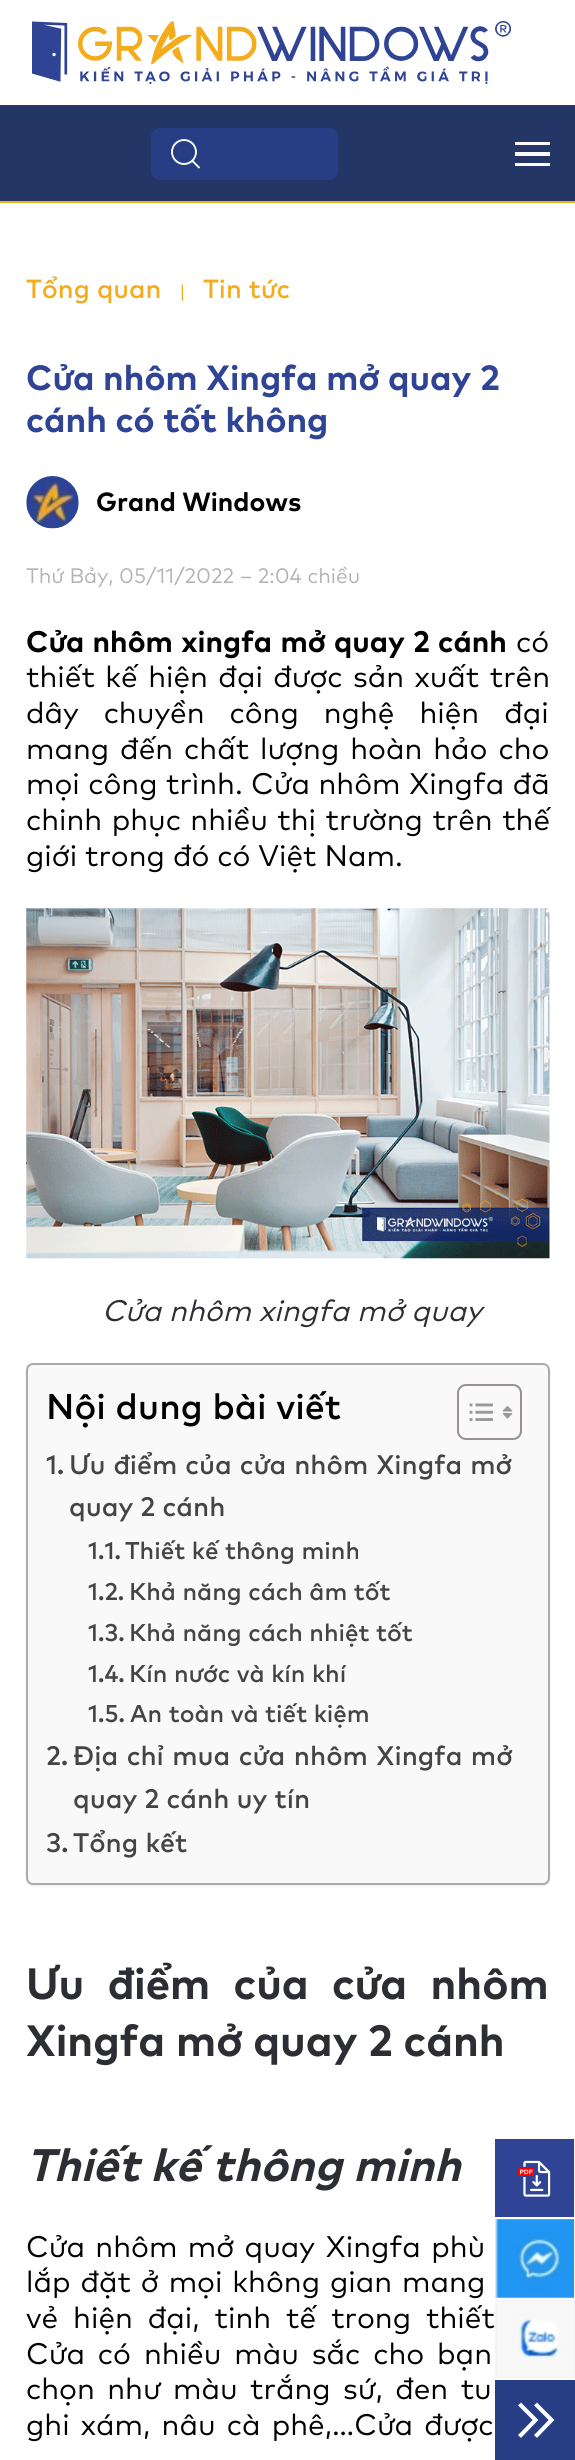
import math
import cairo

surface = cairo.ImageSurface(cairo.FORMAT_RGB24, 575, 2460)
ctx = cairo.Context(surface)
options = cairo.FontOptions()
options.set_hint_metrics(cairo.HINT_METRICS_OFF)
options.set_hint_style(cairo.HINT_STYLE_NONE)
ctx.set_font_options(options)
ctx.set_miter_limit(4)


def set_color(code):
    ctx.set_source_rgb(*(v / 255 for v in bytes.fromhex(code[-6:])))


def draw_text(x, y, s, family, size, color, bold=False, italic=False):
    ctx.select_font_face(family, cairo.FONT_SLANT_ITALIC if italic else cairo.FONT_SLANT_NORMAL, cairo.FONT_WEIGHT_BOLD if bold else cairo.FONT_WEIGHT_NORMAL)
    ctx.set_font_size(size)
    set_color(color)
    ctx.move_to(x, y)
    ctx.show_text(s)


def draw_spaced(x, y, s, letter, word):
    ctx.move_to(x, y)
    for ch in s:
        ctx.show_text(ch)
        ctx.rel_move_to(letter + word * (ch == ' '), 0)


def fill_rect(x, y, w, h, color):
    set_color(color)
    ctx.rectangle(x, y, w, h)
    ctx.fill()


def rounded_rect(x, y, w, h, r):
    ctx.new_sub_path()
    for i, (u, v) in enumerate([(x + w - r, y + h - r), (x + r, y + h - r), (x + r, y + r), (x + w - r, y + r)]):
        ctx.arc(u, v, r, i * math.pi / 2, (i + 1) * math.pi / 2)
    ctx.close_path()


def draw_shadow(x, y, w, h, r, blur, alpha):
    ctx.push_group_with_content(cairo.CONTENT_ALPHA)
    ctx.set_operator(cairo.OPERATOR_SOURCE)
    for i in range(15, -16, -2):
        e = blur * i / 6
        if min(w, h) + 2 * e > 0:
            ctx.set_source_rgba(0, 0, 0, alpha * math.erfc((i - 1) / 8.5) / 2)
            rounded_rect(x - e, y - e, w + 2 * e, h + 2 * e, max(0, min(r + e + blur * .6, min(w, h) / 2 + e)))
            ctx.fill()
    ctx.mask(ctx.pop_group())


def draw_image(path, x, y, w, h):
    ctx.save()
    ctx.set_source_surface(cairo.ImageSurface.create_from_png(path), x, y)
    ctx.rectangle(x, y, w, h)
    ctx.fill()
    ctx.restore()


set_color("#ffffff")
ctx.paint()
draw_image("assets/img1.png", 32, 21, 479, 63)
fill_rect(0, 105, 575, 96, "#233665")
fill_rect(0, 201, 575, 2, "#f5ac1c")
set_color("#283e84")
rounded_rect(151, 128, 187, 52, 9)
ctx.fill()
ctx.arc(184, 152, 12, 0, 2 * math.pi)
set_color("#ffffff")
ctx.set_line_width(1.9)
ctx.stroke()
ctx.new_path()
ctx.move_to(192.5, 161)
ctx.line_to(199.5, 168)
ctx.close_path()
ctx.stroke()
fill_rect(515, 142, 35, 3, "#fafaff")
fill_rect(515, 152, 35, 4, "#fafaff")
fill_rect(515, 163, 35, 3, "#fafaff")
draw_text(26, 298, "Tổng quan", "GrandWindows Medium", 26.25, "#f5ac1c")
draw_text(179, 298, "|", "GrandWindows", 19, "#f5ac1c")
draw_text(203, 298, "Tin tức", "GrandWindows Medium", 26.25, "#f5ac1c")
draw_text(26, 390, "Cửa nhôm Xingfa mở quay 2", "GrandWindows", 35, "#2f4495", bold=True)
draw_text(26, 432, "cánh có tốt không", "GrandWindows", 35, "#2f4495", bold=True)
draw_image("assets/img2.png", 26, 476, 53, 53)
draw_text(96, 511, "Grand Windows", "GrandWindows", 26.25, "#000000", bold=True)
draw_text(26, 583, "Thứ Bảy, 05/11/2022 – 2:04 chiều", "GrandWindows", 21, "#b3b3b3")
ctx.select_font_face("GrandWindows", cairo.FONT_SLANT_NORMAL, cairo.FONT_WEIGHT_BOLD)
ctx.set_font_size(29.75)
set_color("#000000")
draw_spaced(26, 652, "Cửa nhôm xingfa mở quay 2 cánh", 0, 1)
draw_text(516, 652, "có", "GrandWindows", 29.75, "#000000")
draw_spaced(26, 687, "thiết kế hiện đại được sản xuất trên", 0, 2.5)
draw_spaced(26, 723, "dây chuyền công nghệ hiện đại", 0, 17)
draw_spaced(26, 759, "mang đến chất lượng hoàn hảo cho", 0, 3)
draw_spaced(26, 794, "mọi công trình. Cửa nhôm Xingfa đã", 0, 0.5)
draw_spaced(26, 830, "chinh phục nhiều thị trường trên thế", 0, 1.5)
draw_text(26, 866, "giới trong đó có Việt Nam.", "GrandWindows", 29.75, "#000000")
draw_image("assets/img3.png", 26, 908, 524, 351)
draw_text(102, 1321, "Cửa nhôm xingfa mở quay", "GrandWindows", 29.75, "#2d2e33", italic=True)
set_color("#000000")
draw_shadow(26, 1365, 524, 522, 7, 1, 0.05)
set_color("#f9f9f9")
rounded_rect(27, 1364, 522, 520, 6)
ctx.fill_preserve()
set_color("#aaaaaa")
ctx.set_line_width(2)
ctx.stroke()
draw_text(46, 1419, "Nội dung bài viết", "GrandWindows Medium", 35.75, "#000000")
rounded_rect(458, 1385, 63, 54, 8)
set_color("#999191")
ctx.stroke()
draw_image("assets/img4.png", 469, 1403, 24, 18)
draw_image("assets/img5.png", 502, 1405, 11, 14)
draw_text(46, 1474, "1.", "GrandWindows Medium", 26.8, "#444444")
draw_spaced(69, 1474, "Ưu điểm của cửa nhôm Xingfa mở", 0, 0.75)
draw_text(69, 1516, "quay 2 cánh", "GrandWindows Medium", 26.8, "#444444")
draw_text(88, 1559, "1.1.", "GrandWindows Medium", 24.2, "#444444")
draw_text(125, 1559, "Thiết kế thông minh", "GrandWindows Medium", 24.2, "#444444")
draw_text(88, 1600, "1.2.", "GrandWindows Medium", 24.2, "#444444")
draw_text(129, 1600, "Khả năng cách âm tốt", "GrandWindows Medium", 24.2, "#444444")
draw_text(88, 1641, "1.3.", "GrandWindows Medium", 24.2, "#444444")
draw_text(129, 1641, "Khả năng cách nhiệt tốt", "GrandWindows Medium", 24.2, "#444444")
draw_text(88, 1682, "1.4.", "GrandWindows Medium", 24.2, "#444444")
draw_text(129, 1682, "Kín nước và kín khí", "GrandWindows Medium", 24.2, "#444444")
draw_text(88, 1722, "1.5.", "GrandWindows Medium", 24.2, "#444444")
draw_text(130, 1722, "An toàn và tiết kiệm", "GrandWindows Medium", 24.2, "#444444")
draw_text(46, 1765, "2.", "GrandWindows Medium", 26.8, "#444444")
draw_spaced(73, 1765, "Địa chỉ mua cửa nhôm Xingfa mở", 0, 1.25)
draw_text(73, 1808, "quay 2 cánh uy tín", "GrandWindows Medium", 26.8, "#444444")
draw_text(46, 1852, "3.", "GrandWindows Medium", 26.8, "#444444")
draw_text(73, 1852, "Tổng kết", "GrandWindows Medium", 26.8, "#444444")
ctx.select_font_face("GrandWindows", cairo.FONT_SLANT_NORMAL, cairo.FONT_WEIGHT_BOLD)
ctx.set_font_size(43.75)
set_color("#2d2e33")
draw_spaced(26, 1999, "Ưu điểm của cửa nhôm", 0, 12.5)
draw_text(26, 2056, "Xingfa mở quay 2 cánh", "GrandWindows", 43.75, "#2d2e33", bold=True)
draw_text(26, 2181, "Thiết kế thông minh", "GrandWindows", 45.5, "#2d2e33", bold=True, italic=True)
ctx.select_font_face("GrandWindows")
ctx.set_font_size(29.75)
set_color("#000000")
draw_spaced(26, 2257, "Cửa nhôm mở quay Xingfa phù", 0, 2.5)
draw_spaced(26, 2292, "lắp đặt ở mọi không gian mang", 0, 2)
draw_spaced(26, 2328, "vẻ hiện đại, tinh tế trong thiết", 0, 7)
draw_spaced(26, 2364, "Cửa có nhiều màu sắc cho bạn", 0, 5)
draw_spaced(26, 2399, "chọn như màu trắng sứ, đen tu", 0, 4.5)
draw_spaced(26, 2435, "ghi xám, nâu cà phê,…Cửa được", 0, 3.25)
fill_rect(574, 2139, 1, 78, "#f6f3f2")
draw_image("assets/img6.png", 495, 2139, 79, 78)
fill_rect(495, 2219, 80, 79, "#f6f3f2")
draw_image("assets/img7.png", 495, 2219, 79, 79)
fill_rect(495, 2300, 80, 78, "#f6f3f2")
draw_image("assets/img8.png", 497, 2301, 77, 78)
fill_rect(495, 2380, 80, 80, "#283e84")
ctx.new_path()
ctx.move_to(535.5, 2404)
ctx.line_to(551.5, 2420)
ctx.line_to(535.5, 2436.5)
ctx.move_to(519.5, 2404)
ctx.line_to(535.5, 2420)
ctx.line_to(519.5, 2436.5)
set_color("#ffffff")
ctx.set_line_width(4.1)
ctx.stroke()
surface.write_to_png("output.png")
